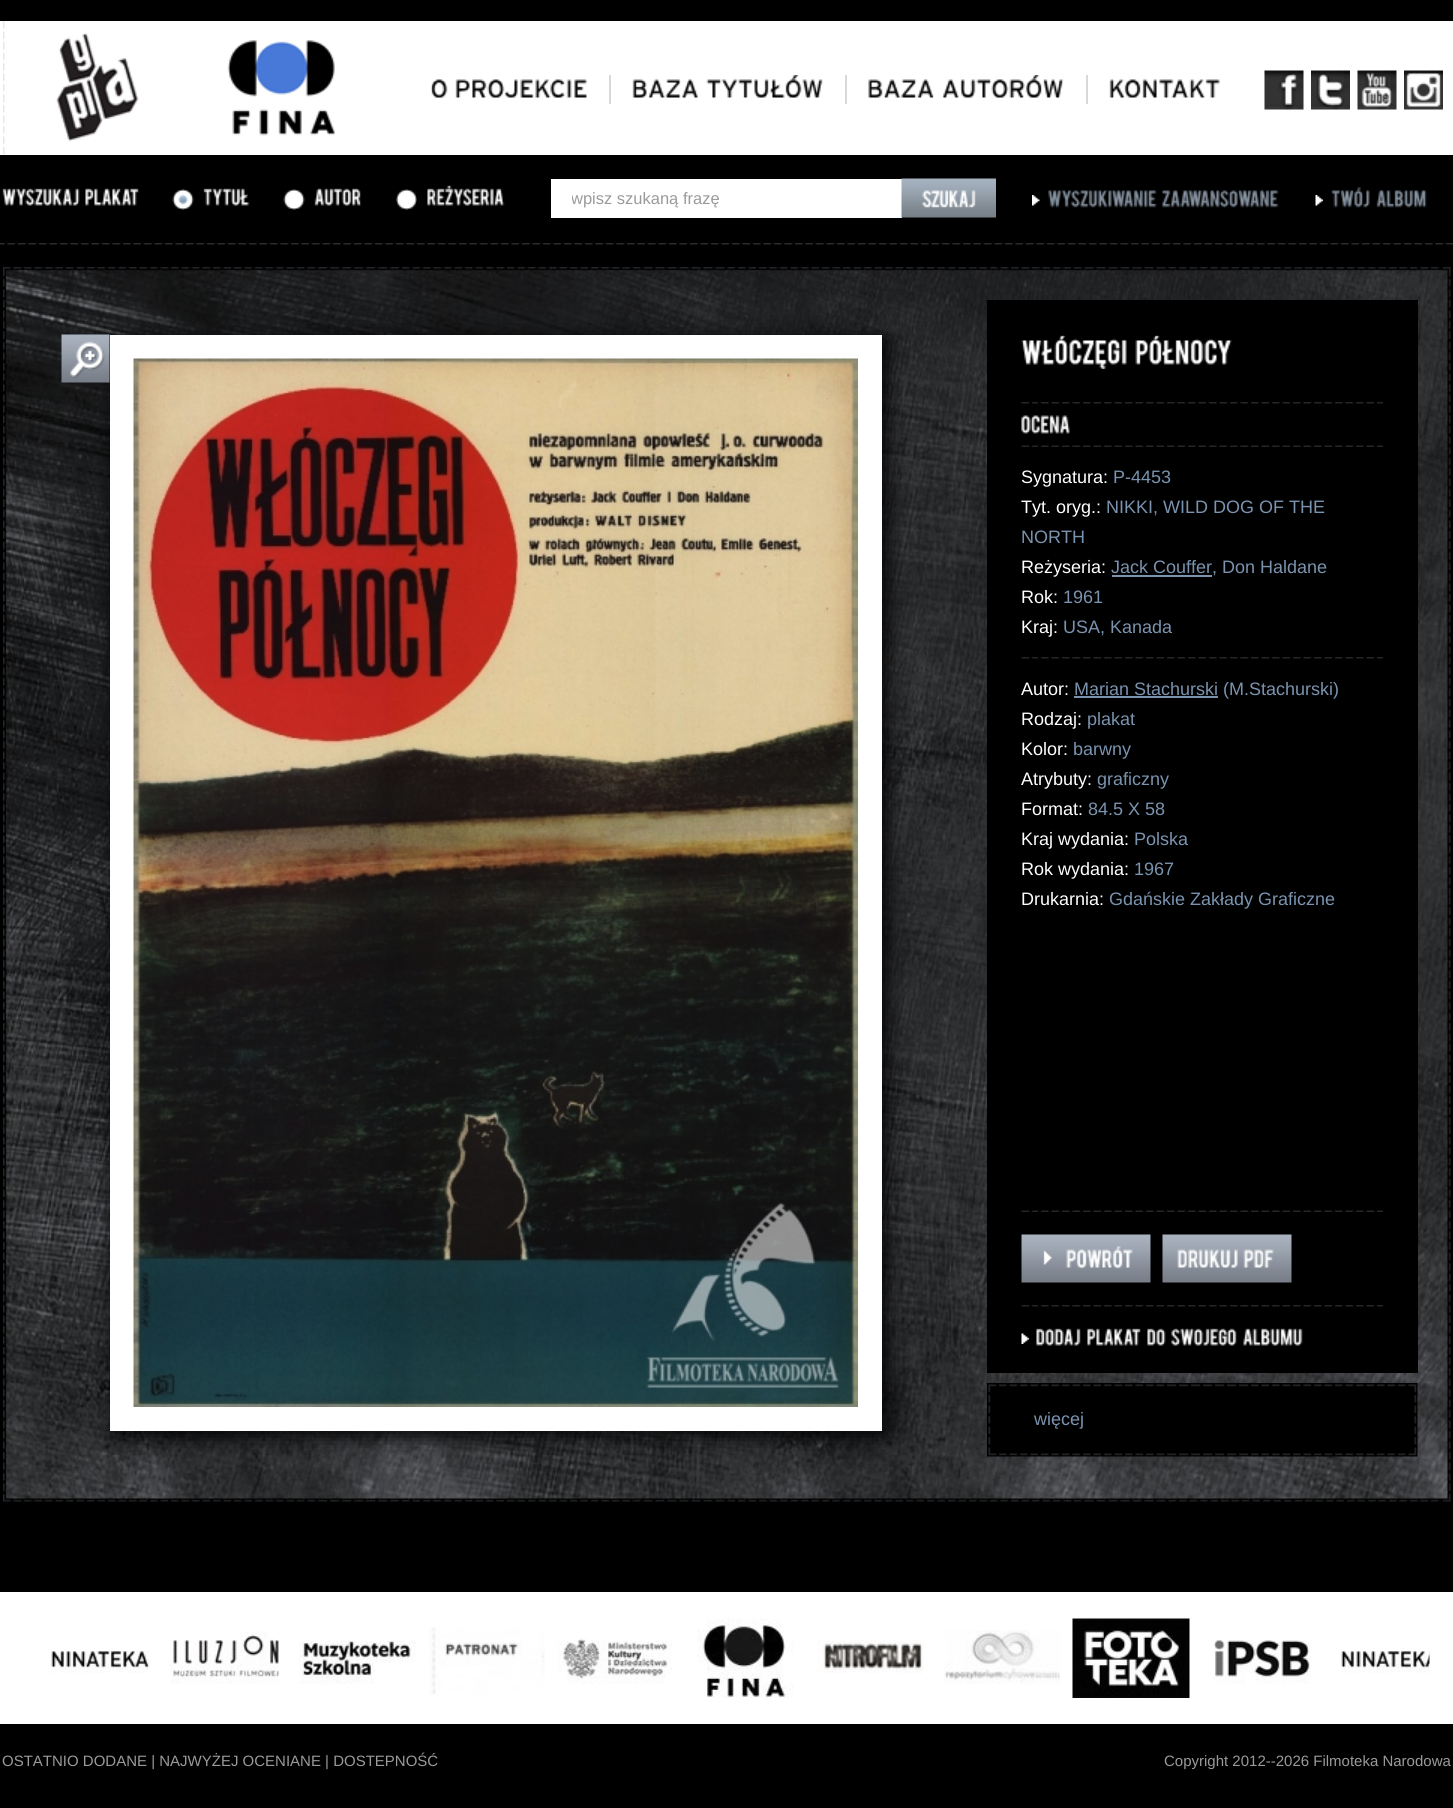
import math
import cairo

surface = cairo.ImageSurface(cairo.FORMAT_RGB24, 1453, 1808)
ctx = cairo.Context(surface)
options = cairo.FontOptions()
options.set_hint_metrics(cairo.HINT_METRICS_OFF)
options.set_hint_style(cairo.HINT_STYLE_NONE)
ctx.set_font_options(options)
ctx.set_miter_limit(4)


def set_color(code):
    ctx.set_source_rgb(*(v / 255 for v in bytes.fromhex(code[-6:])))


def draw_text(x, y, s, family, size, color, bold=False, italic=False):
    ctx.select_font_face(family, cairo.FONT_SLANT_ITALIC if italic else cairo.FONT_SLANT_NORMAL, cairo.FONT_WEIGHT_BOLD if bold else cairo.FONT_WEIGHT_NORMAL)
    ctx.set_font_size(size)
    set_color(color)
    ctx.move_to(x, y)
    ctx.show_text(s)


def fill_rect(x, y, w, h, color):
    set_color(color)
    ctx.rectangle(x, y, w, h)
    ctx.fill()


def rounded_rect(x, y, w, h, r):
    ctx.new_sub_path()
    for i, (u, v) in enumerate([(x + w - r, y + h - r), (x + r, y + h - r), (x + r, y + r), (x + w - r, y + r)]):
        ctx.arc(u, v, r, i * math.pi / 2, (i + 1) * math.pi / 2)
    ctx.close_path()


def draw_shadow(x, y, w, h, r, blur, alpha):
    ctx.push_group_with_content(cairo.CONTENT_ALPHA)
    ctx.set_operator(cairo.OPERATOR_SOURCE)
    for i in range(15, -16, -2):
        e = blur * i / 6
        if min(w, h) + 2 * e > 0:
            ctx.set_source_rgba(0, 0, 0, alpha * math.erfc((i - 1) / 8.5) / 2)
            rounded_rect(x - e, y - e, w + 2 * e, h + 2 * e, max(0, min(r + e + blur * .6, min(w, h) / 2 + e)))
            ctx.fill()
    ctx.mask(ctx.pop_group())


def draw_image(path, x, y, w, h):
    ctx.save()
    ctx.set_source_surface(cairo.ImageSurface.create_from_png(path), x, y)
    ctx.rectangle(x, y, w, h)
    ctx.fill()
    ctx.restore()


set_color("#000000")
ctx.paint()
fill_rect(0, 21, 1453, 134, "#ffffff")
draw_image("assets/img1.png", 3, 21, 136, 134)
draw_image("assets/img2.png", 227, 40, 108, 96)
fill_rect(609, 75, 2, 29, "#d9d9d9")
draw_image("assets/img3.png", 430, 79, 18, 19)
draw_image("assets/img4.png", 455, 79, 132, 19)
fill_rect(845, 75, 2, 29, "#d9d9d9")
draw_image("assets/img5.png", 632, 79, 66, 19)
draw_image("assets/img6.png", 706, 75, 117, 23)
fill_rect(1086, 75, 2, 29, "#d9d9d9")
draw_image("assets/img7.png", 868, 79, 66, 19)
draw_image("assets/img8.png", 942, 75, 122, 23)
draw_image("assets/img9.png", 1109, 79, 111, 19)
draw_image("assets/img10.png", 1264, 70, 40, 40)
draw_image("assets/img11.png", 1311, 70, 39, 40)
draw_image("assets/img12.png", 1357, 70, 40, 40)
draw_image("assets/img13.png", 1404, 70, 39, 40)
draw_image("assets/img14.png", 0, 243, 1453, 2)
draw_image("assets/img15.png", 2, 188, 78, 18)
draw_image("assets/img16.png", 85, 188, 54, 18)
draw_image("assets/img17.png", 172, 189, 22, 21)
draw_image("assets/img18.png", 203, 188, 47, 18)
draw_image("assets/img19.png", 283, 189, 22, 21)
draw_image("assets/img20.png", 314, 188, 48, 18)
draw_image("assets/img21.png", 396, 189, 21, 21)
draw_image("assets/img22.png", 427, 185, 78, 21)
fill_rect(551, 179, 351, 39, "#ffffff")
ctx.save()
ctx.rectangle(572, 179, 309, 39)
ctx.clip()
draw_text(571, 204, "wpisz szukaną frazę", "Liberation Sans", 16.5, "#9a9a9a")
ctx.restore()
draw_image("assets/img23.png", 901, 178, 95, 40)
draw_image("assets/img24.png", 1032, 195, 8, 11)
draw_image("assets/img25.png", 1048, 190, 109, 18)
draw_image("assets/img26.png", 1162, 190, 117, 18)
draw_image("assets/img27.png", 1315, 195, 8, 11)
draw_image("assets/img28.png", 1331, 187, 39, 21)
draw_image("assets/img29.png", 1376, 190, 51, 18)
draw_image("assets/img30.png", 3, 267, 1448, 1235)
set_color("#000000")
draw_shadow(114, 339, 773, 1097, 0, 10.5, 1)
fill_rect(110, 335, 772, 1096, "#ffffff")
draw_image("assets/img31.png", 61, 334, 49, 49)
draw_image("assets/img32.png", 133, 358, 725, 1049)
fill_rect(987, 300, 431, 1073, "#000000")
draw_image("assets/img33.png", 1021, 335, 106, 34)
draw_image("assets/img34.png", 1135, 335, 97, 30)
draw_image("assets/img35.png", 1021, 402, 362, 2)
draw_image("assets/img36.png", 1021, 415, 49, 19)
draw_image("assets/img37.png", 1021, 445, 362, 2)
draw_text(1021, 483, "Sygnatura:", "Liberation Sans", 18, "#ffffff")
draw_text(1113, 483, "P-4453", "Liberation Sans", 18, "#7a93af")
draw_text(1021, 513, "Tyt. oryg.:", "Liberation Sans", 18, "#ffffff")
draw_text(1106, 513, "NIKKI, WILD DOG OF THE", "Liberation Sans", 18, "#7a93af")
draw_text(1021, 543, "NORTH", "Liberation Sans", 18, "#7a93af")
draw_text(1021, 573, "Reżyseria:", "Liberation Sans", 18, "#ffffff")
fill_rect(1112, 575, 100, 2, "#7a93af")
draw_text(1111, 573, "Jack Couffer, Don Haldane", "Liberation Sans", 18, "#7a93af")
draw_text(1021, 603, "Rok:", "Liberation Sans", 18, "#ffffff")
draw_text(1063, 603, "1961", "Liberation Sans", 18, "#7a93af")
draw_text(1021, 633, "Kraj:", "Liberation Sans", 18, "#ffffff")
draw_text(1063, 633, "USA, Kanada", "Liberation Sans", 18, "#7a93af")
draw_image("assets/img35.png", 1021, 657, 362, 2)
draw_text(1021, 695, "Autor:", "Liberation Sans", 18, "#ffffff")
fill_rect(1074, 696, 144, 2, "#7a93af")
draw_text(1074, 695, "Marian Stachurski (M.Stachurski)", "Liberation Sans", 18, "#7a93af")
draw_text(1021, 725, "Rodzaj:", "Liberation Sans", 18, "#ffffff")
draw_text(1087, 725, "plakat", "Liberation Sans", 18, "#7a93af")
draw_text(1021, 755, "Kolor:", "Liberation Sans", 18, "#ffffff")
draw_text(1073, 755, "barwny", "Liberation Sans", 18, "#7a93af")
draw_text(1021, 785, "Atrybuty:", "Liberation Sans", 18, "#ffffff")
draw_text(1097, 785, "graficzny", "Liberation Sans", 18, "#7a93af")
draw_text(1021, 815, "Format:", "Liberation Sans", 18, "#ffffff")
draw_text(1088, 815, "84.5 X 58", "Liberation Sans", 18, "#7a93af")
draw_text(1021, 845, "Kraj wydania:", "Liberation Sans", 18, "#ffffff")
draw_text(1134, 845, "Polska", "Liberation Sans", 18, "#7a93af")
draw_text(1021, 875, "Rok wydania:", "Liberation Sans", 18, "#ffffff")
draw_text(1134, 875, "1967", "Liberation Sans", 18, "#7a93af")
draw_text(1021, 905, "Drukarnia:", "Liberation Sans", 18, "#ffffff")
draw_text(1109, 905, "Gdańskie Zakłady Graficzne", "Liberation Sans", 18, "#7a93af")
draw_image("assets/img37.png", 1021, 1210, 362, 2)
draw_image("assets/img38.png", 1021, 1234, 130, 49)
draw_image("assets/img39.png", 1162, 1234, 130, 49)
draw_image("assets/img35.png", 1021, 1305, 362, 2)
draw_image("assets/img40.png", 1021, 1333, 8, 11)
draw_image("assets/img41.png", 1036, 1328, 45, 18)
draw_image("assets/img16.png", 1087, 1328, 54, 18)
draw_image("assets/img42.png", 1147, 1328, 19, 18)
draw_image("assets/img43.png", 1171, 1328, 66, 18)
draw_image("assets/img44.png", 1243, 1328, 60, 18)
draw_image("assets/img45.png", 987, 1383, 431, 74)
draw_text(1034, 1425, "więcej", "Liberation Sans", 18, "#7a93af")
fill_rect(0, 1592, 1453, 132, "#ffffff")
draw_image("assets/img46.png", 51, 1651, 98, 22)
draw_image("assets/img47.png", 170, 1631, 110, 53)
draw_image("assets/img48.png", 299, 1640, 117, 44)
draw_image("assets/img49.png", 429, 1627, 116, 68)
draw_image("assets/img50.png", 557, 1638, 115, 46)
draw_image("assets/img51.png", 697, 1618, 97, 80)
draw_image("assets/img52.png", 817, 1640, 107, 33)
draw_image("assets/img53.png", 944, 1630, 117, 54)
draw_image("assets/img54.png", 1072, 1618, 118, 80)
draw_image("assets/img55.png", 1213, 1640, 98, 44)
draw_image("assets/img56.png", 1341, 1651, 89, 22)
draw_text(2, 1766, "OSTATNIO DODANE | NAJWYŻEJ OCENIANE | DOSTEPNOŚĆ", "Liberation Sans", 15, "#9a9a9a")
draw_text(1164, 1766, "Copyright 2012--2026 Filmoteka Narodowa", "Liberation Sans", 15, "#9a9a9a")
surface.write_to_png("output.png")
